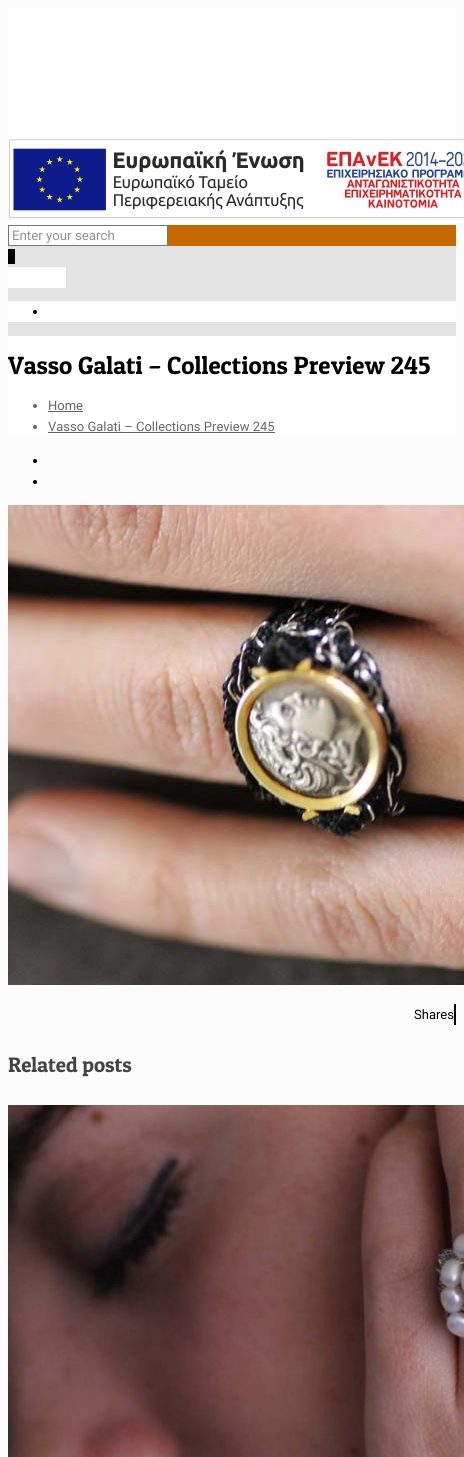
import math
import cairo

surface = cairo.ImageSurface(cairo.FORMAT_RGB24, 464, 1457)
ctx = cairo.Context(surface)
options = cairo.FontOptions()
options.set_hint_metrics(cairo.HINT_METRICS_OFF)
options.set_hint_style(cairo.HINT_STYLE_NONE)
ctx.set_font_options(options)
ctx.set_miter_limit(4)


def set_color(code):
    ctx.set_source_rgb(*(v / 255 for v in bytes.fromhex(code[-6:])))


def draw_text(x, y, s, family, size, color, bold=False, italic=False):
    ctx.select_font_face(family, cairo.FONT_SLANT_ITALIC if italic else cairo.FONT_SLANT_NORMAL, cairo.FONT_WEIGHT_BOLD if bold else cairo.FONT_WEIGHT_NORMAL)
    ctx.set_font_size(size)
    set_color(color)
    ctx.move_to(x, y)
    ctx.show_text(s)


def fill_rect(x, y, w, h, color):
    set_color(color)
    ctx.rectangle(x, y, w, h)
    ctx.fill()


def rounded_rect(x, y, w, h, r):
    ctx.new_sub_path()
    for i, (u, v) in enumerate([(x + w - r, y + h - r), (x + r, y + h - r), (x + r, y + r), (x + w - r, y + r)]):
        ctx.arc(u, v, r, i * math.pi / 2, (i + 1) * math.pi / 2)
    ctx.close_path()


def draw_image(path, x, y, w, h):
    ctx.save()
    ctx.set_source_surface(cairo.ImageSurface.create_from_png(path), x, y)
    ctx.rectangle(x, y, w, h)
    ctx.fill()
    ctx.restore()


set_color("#fcfcfc")
ctx.paint()
fill_rect(8, 8, 448, 429, "#ffffff")
draw_image("assets/img1.png", 8, 139, 456, 80)
fill_rect(8, 225, 448, 21, "#c66902")
set_color("#ffffff")
rounded_rect(8.5, 225.5, 159, 20, 1.5)
ctx.fill_preserve()
set_color("#767676")
ctx.set_line_width(1)
ctx.stroke()
draw_text(12, 240, "Enter your search", "Roboto", 13.25, "#929292")
fill_rect(8, 246, 448, 90, "#e3e3e3")
fill_rect(8, 249, 7, 15, "#000000")
fill_rect(8, 267, 58, 21, "#ffffff")
fill_rect(8, 301, 448, 21, "#ffffff")
set_color("#000000")
ctx.new_path()
ctx.arc(35, 312, 2, 0, 2 * math.pi)
ctx.fill()
draw_text(8, 374, "Vasso Galati – Collections Preview 245", "Patua One", 25, "#000000")
set_color("#666666")
ctx.new_path()
ctx.arc(35, 406, 2, 0, 2 * math.pi)
ctx.fill()
draw_text(48, 410, "Home", "Roboto", 13, "#666666")
fill_rect(48, 411, 35, 1, "#666666")
ctx.new_path()
ctx.arc(35, 427, 2, 0, 2 * math.pi)
ctx.fill()
draw_text(48, 431, "Vasso Galati – Collections Preview 245", "Roboto", 13, "#666666")
fill_rect(48, 432, 227, 1, "#666666")
set_color("#000000")
ctx.new_path()
ctx.arc(35, 461, 2, 0, 2 * math.pi)
ctx.fill()
ctx.arc(35, 482, 2, 0, 2 * math.pi)
ctx.fill()
draw_image("assets/img2.png", 8, 505, 456, 480)
fill_rect(454, 1004, 2, 21, "#000000")
draw_text(414, 1019, "Shares", "Roboto", 13, "#000000")
draw_text(8, 1072, "Related posts", "Patua One", 21, "#444444")
draw_image("assets/img3.png", 8, 1105, 456, 352)
surface.write_to_png("output.png")
